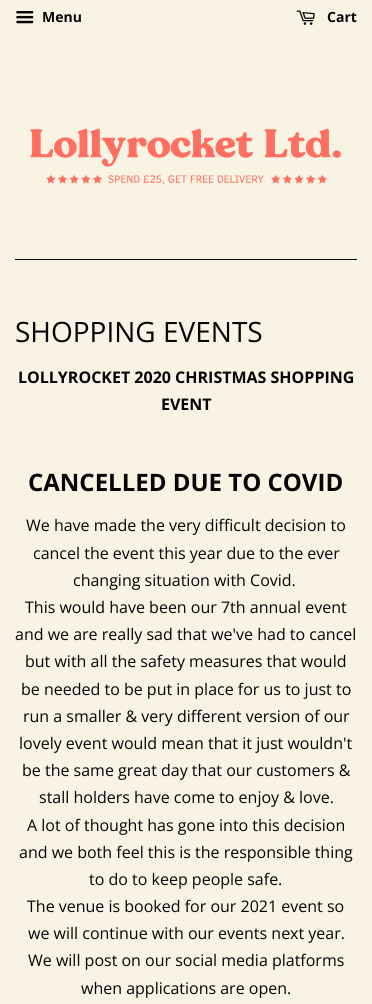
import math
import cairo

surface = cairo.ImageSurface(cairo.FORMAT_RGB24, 372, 1004)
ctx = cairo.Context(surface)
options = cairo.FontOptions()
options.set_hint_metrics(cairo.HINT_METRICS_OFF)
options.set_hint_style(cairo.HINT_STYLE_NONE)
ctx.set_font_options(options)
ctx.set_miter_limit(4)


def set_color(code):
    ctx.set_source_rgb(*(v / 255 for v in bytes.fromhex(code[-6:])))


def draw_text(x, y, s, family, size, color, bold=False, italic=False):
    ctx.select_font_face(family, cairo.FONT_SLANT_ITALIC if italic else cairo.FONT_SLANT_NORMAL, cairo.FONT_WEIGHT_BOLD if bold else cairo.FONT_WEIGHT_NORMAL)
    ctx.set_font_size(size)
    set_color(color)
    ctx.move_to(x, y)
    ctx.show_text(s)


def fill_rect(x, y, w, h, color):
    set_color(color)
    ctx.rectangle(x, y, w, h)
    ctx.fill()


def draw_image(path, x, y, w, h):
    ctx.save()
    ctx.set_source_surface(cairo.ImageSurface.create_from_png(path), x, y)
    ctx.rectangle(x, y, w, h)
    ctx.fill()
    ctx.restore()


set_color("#f8f3e3")
ctx.paint()
draw_image("assets/img1.png", 16, 11, 18, 13)
draw_text(42, 22, "Menu", "Open Sans", 14, "#050505", bold=True)
draw_image("assets/img2.png", 296, 10, 19, 15)
draw_text(327, 22, "Cart", "Open Sans", 14, "#050505", bold=True)
fill_rect(15, 259, 342, 1, "#050505")
draw_image("assets/img3.png", 30, 77, 327, 152)
draw_text(15, 342, "SHOPPING EVENTS", "Open Sans", 28, "#050505")
draw_text(18, 383, "LOLLYROCKET 2020 CHRISTMAS SHOPPING", "Open Sans", 16, "#050505", bold=True)
draw_text(161, 410, "EVENT", "Open Sans", 16, "#050505", bold=True)
draw_text(28, 491, "CANCELLED DUE TO COVID", "Open Sans", 24, "#050505", bold=True)
draw_text(26, 531, "We have made the very difficult decision to", "Open Sans", 16, "#050505")
draw_text(33, 559, "cancel the event this year due to the ever", "Open Sans", 16, "#050505")
draw_text(73, 586, "changing situation with Covid.", "Open Sans", 16, "#050505")
draw_text(25, 613, "This would have been our 7th annual event", "Open Sans", 16, "#050505")
draw_text(15, 640, "and we are really sad that we've had to cancel", "Open Sans", 16, "#050505")
draw_text(25, 667, "but with all the safety measures that would", "Open Sans", 16, "#050505")
draw_text(21, 695, "be needed to be put in place for us to just to", "Open Sans", 16, "#050505")
draw_text(23, 722, "run a smaller & very different version of our", "Open Sans", 16, "#050505")
draw_text(19, 749, "lovely event would mean that it just wouldn't", "Open Sans", 16, "#050505")
draw_text(22, 776, "be the same great day that our customers &", "Open Sans", 16, "#050505")
draw_text(39, 803, "stall holders have come to enjoy & love.", "Open Sans", 16, "#050505")
draw_text(27, 831, "A lot of thought has gone into this decision", "Open Sans", 16, "#050505")
draw_text(19, 858, "and we both feel this is the responsible thing", "Open Sans", 16, "#050505")
draw_text(89, 885, "to do to keep people safe.", "Open Sans", 16, "#050505")
draw_text(27, 912, "The venue is booked for our 2021 event so", "Open Sans", 16, "#050505")
draw_text(28, 939, "we will continue with our events next year.", "Open Sans", 16, "#050505")
draw_text(28, 966, "We will post on our social media platforms", "Open Sans", 16, "#050505")
draw_text(81, 994, "when applications are open.", "Open Sans", 16, "#050505")
surface.write_to_png("output.png")
